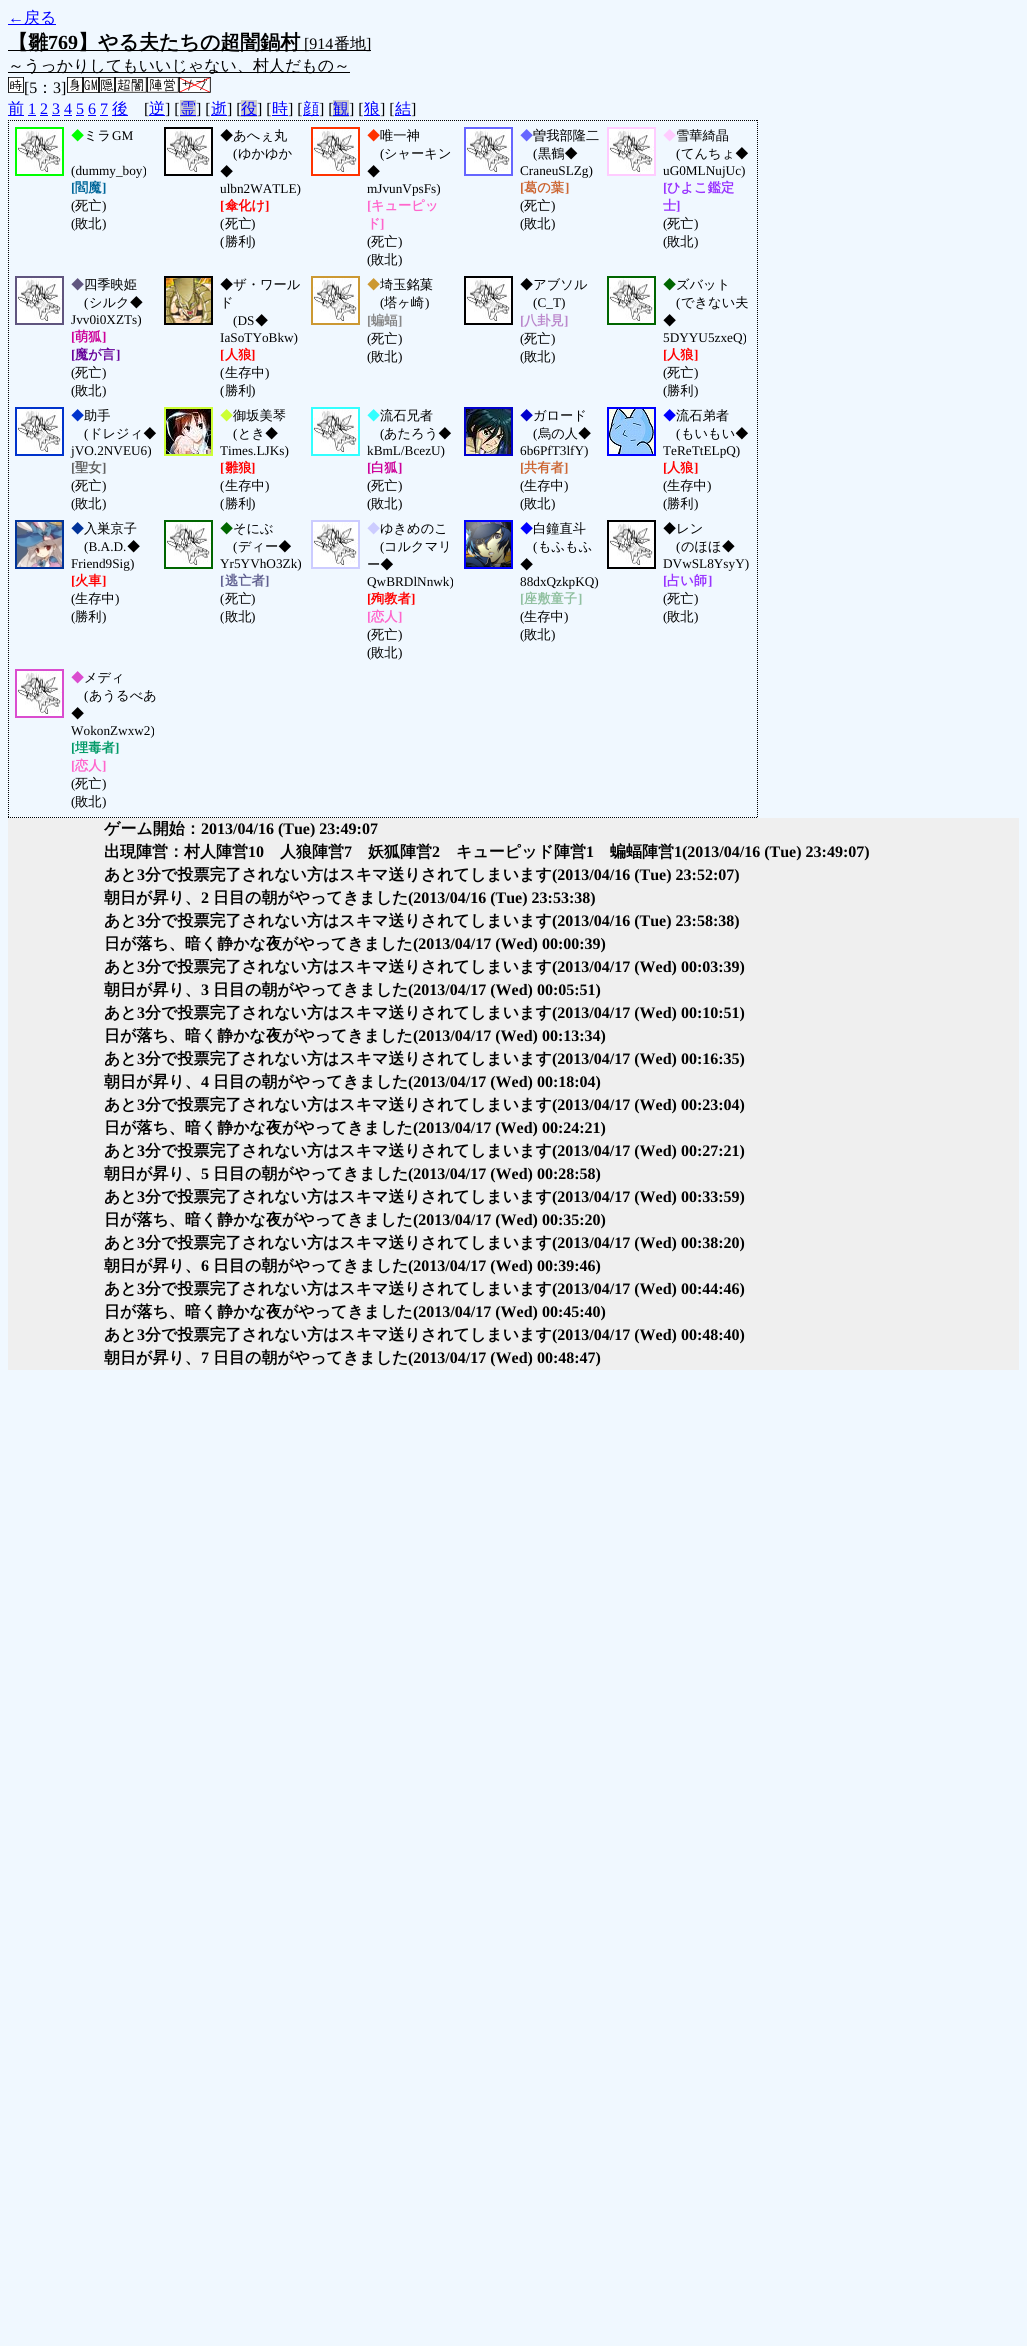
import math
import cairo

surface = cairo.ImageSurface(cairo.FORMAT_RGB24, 1027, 2346)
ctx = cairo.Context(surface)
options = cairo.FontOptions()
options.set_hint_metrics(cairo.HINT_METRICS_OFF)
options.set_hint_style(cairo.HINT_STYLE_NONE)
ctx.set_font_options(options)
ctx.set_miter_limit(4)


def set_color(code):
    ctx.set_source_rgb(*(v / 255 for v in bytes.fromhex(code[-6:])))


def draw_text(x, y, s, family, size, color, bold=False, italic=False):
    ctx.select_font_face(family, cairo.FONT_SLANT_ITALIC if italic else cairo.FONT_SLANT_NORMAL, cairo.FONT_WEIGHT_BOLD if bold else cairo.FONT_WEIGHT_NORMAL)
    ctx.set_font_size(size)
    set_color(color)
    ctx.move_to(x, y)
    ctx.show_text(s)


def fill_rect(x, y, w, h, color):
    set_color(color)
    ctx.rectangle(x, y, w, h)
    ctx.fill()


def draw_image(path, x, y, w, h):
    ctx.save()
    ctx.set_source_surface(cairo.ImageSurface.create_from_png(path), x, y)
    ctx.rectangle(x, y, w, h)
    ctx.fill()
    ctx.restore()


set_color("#f0f8ff")
ctx.paint()
draw_text(8, 23, "←", "Liberation Serif", 16, "#0000ff")
fill_rect(8, 24, 48, 1, "#0000ff")
draw_text(24, 23, "戻る", "WenQuanYi Zen Hei Medium", 16, "#0000ff")
fill_rect(8, 50, 363, 1, "#000000")
draw_text(8, 49, "【雛", "WenQuanYi Zen Hei", 20, "#000000", bold=True)
draw_text(48, 49, "769", "Liberation Serif", 20, "#000000", bold=True)
draw_text(78, 49, "】やる夫たちの超闇鍋村", "WenQuanYi Zen Hei", 20, "#000000", bold=True)
draw_text(304, 49, "[914", "Liberation Serif", 16, "#000000")
draw_text(334, 49, "番地", "WenQuanYi Zen Hei Medium", 16, "#000000")
draw_text(366, 49, "]", "Liberation Serif", 16, "#000000")
fill_rect(8, 72, 342, 1, "#000000")
draw_text(8, 71, "～うっかりしてもいいじゃない、村人だもの～", "WenQuanYi Zen Hei Medium", 16, "#000000")
draw_image("assets/img1.png", 8, 77, 16, 16)
draw_text(24, 93, "[5", "Liberation Serif", 16, "#000000")
draw_text(37, 93, "：", "WenQuanYi Zen Hei Medium", 16, "#000000")
draw_text(53, 93, "3]", "Liberation Serif", 16, "#000000")
draw_image("assets/img2.png", 67, 77, 16, 16)
draw_image("assets/img3.png", 83, 77, 16, 16)
draw_image("assets/img4.png", 99, 77, 16, 16)
draw_image("assets/img5.png", 115, 77, 32, 16)
draw_image("assets/img6.png", 147, 77, 32, 16)
draw_image("assets/img7.png", 179, 77, 32, 16)
fill_rect(8, 115, 16, 1, "#0000ff")
draw_text(8, 114, "前", "WenQuanYi Zen Hei Medium", 16, "#0000ff")
draw_text(28, 114, "1 2 3 4 5 6 7", "Liberation Serif", 16, "#0000ff")
fill_rect(28, 115, 8, 1, "#0000ff")
fill_rect(112, 115, 16, 1, "#0000ff")
draw_text(112, 114, "後", "WenQuanYi Zen Hei Medium", 16, "#0000ff")
draw_text(144, 114, "[", "Liberation Serif", 16, "#000000")
fill_rect(149, 115, 16, 1, "#0000ff")
draw_text(149, 114, "逆", "WenQuanYi Zen Hei Medium", 16, "#0000ff")
draw_text(165, 114, "] [", "Liberation Serif", 16, "#000000")
fill_rect(180, 100, 16, 17, "#cccccc")
fill_rect(180, 115, 16, 1, "#0000ff")
draw_text(180, 114, "霊", "WenQuanYi Zen Hei Medium", 16, "#0000ff")
draw_text(196, 114, "] [", "Liberation Serif", 16, "#000000")
fill_rect(211, 115, 16, 1, "#0000ff")
draw_text(211, 114, "逝", "WenQuanYi Zen Hei Medium", 16, "#0000ff")
draw_text(227, 114, "] [", "Liberation Serif", 16, "#000000")
fill_rect(241, 100, 16, 17, "#cccccc")
fill_rect(241, 115, 16, 1, "#0000ff")
draw_text(241, 114, "役", "WenQuanYi Zen Hei Medium", 16, "#0000ff")
draw_text(257, 114, "] [", "Liberation Serif", 16, "#000000")
fill_rect(272, 115, 16, 1, "#0000ff")
draw_text(272, 114, "時", "WenQuanYi Zen Hei Medium", 16, "#0000ff")
draw_text(288, 114, "] [", "Liberation Serif", 16, "#000000")
fill_rect(303, 115, 16, 1, "#0000ff")
draw_text(303, 114, "顔", "WenQuanYi Zen Hei Medium", 16, "#0000ff")
draw_text(319, 114, "] [", "Liberation Serif", 16, "#000000")
fill_rect(333, 100, 16, 17, "#cccccc")
fill_rect(333, 115, 16, 1, "#0000ff")
draw_text(333, 114, "観", "WenQuanYi Zen Hei Medium", 16, "#0000ff")
draw_text(349, 114, "] [", "Liberation Serif", 16, "#000000")
fill_rect(364, 115, 16, 1, "#0000ff")
draw_text(364, 114, "狼", "WenQuanYi Zen Hei Medium", 16, "#0000ff")
draw_text(380, 114, "] [", "Liberation Serif", 16, "#000000")
fill_rect(395, 115, 16, 1, "#0000ff")
draw_text(395, 114, "結", "WenQuanYi Zen Hei Medium", 16, "#0000ff")
draw_text(411, 114, "]", "Liberation Serif", 16, "#000000")
fill_rect(40, 115, 8, 1, "#0000ff")
fill_rect(52, 115, 8, 1, "#0000ff")
fill_rect(64, 115, 8, 1, "#0000ff")
fill_rect(76, 115, 8, 1, "#0000ff")
fill_rect(88, 115, 8, 1, "#0000ff")
fill_rect(100, 115, 8, 1, "#0000ff")
ctx.new_path()
ctx.move_to(8, 120.5)
ctx.line_to(758, 120.5)
set_color("#000000")
ctx.set_line_width(1)
ctx.set_dash([1, 1])
ctx.stroke()
ctx.new_path()
ctx.move_to(757.5, 120)
ctx.line_to(757.5, 818)
ctx.stroke()
ctx.new_path()
ctx.move_to(8, 817.5)
ctx.line_to(758, 817.5)
ctx.stroke()
ctx.new_path()
ctx.move_to(8.5, 120)
ctx.line_to(8.5, 818)
ctx.stroke()
ctx.rectangle(16, 128, 47, 47)
set_color("#00ff00")
ctx.set_line_width(2)
ctx.set_dash([])
ctx.stroke()
draw_image("assets/img8.png", 17, 129, 45, 45)
draw_text(71, 140, "◆", "WenQuanYi Zen Hei Medium", 13.25, "#00ff00")
draw_text(84, 140, "ミラ", "WenQuanYi Zen Hei Medium", 13.25, "#000000")
draw_text(112, 140, "GM", "Liberation Serif", 13.25, "#000000")
draw_text(71, 175, "(dummy_boy)", "Liberation Serif", 13.25, "#000000")
draw_text(71, 192, "[", "Liberation Serif", 13.25, "#006699", bold=True)
draw_text(75, 192, "閻魔", "WenQuanYi Zen Hei", 13.25, "#006699", bold=True)
draw_text(102, 192, "]", "Liberation Serif", 13.25, "#006699", bold=True)
draw_text(71, 210, "(", "Liberation Serif", 13.25, "#000000")
draw_text(75, 210, "死亡", "WenQuanYi Zen Hei Medium", 13.25, "#000000")
draw_text(102, 210, ")", "Liberation Serif", 13.25, "#000000")
draw_text(71, 228, "(", "Liberation Serif", 13.25, "#000000")
draw_text(75, 228, "敗北", "WenQuanYi Zen Hei Medium", 13.25, "#000000")
draw_text(102, 228, ")", "Liberation Serif", 13.25, "#000000")
ctx.rectangle(165, 128, 47, 47)
ctx.stroke()
draw_image("assets/img8.png", 166, 129, 45, 45)
draw_text(220, 140, "◆あへぇ丸", "WenQuanYi Zen Hei Medium", 13.25, "#000000")
draw_text(233, 158, "(", "Liberation Serif", 13.25, "#000000")
draw_text(238, 158, "ゆかゆか", "WenQuanYi Zen Hei Medium", 13.25, "#000000")
draw_text(220, 176, "◆", "WenQuanYi Zen Hei Medium", 13.25, "#000000")
draw_text(220, 193, "ulbn2WATLE)", "Liberation Serif", 13.25, "#000000")
draw_text(220, 210, "[", "Liberation Serif", 13.25, "#ff0000", bold=True)
draw_text(225, 210, "傘化け", "WenQuanYi Zen Hei", 13.25, "#ff0000", bold=True)
draw_text(265, 210, "]", "Liberation Serif", 13.25, "#ff0000", bold=True)
draw_text(220, 228, "(", "Liberation Serif", 13.25, "#000000")
draw_text(225, 228, "死亡", "WenQuanYi Zen Hei Medium", 13.25, "#000000")
draw_text(251, 228, ")", "Liberation Serif", 13.25, "#000000")
draw_text(220, 246, "(", "Liberation Serif", 13.25, "#000000")
draw_text(225, 246, "勝利", "WenQuanYi Zen Hei Medium", 13.25, "#000000")
draw_text(251, 246, ")", "Liberation Serif", 13.25, "#000000")
ctx.rectangle(312, 128, 47, 47)
set_color("#ff3300")
ctx.stroke()
draw_image("assets/img8.png", 313, 129, 45, 45)
draw_text(367, 140, "◆", "WenQuanYi Zen Hei Medium", 13.25, "#ff3300")
draw_text(380, 140, "唯一神", "WenQuanYi Zen Hei Medium", 13.25, "#000000")
draw_text(380, 158, "(", "Liberation Serif", 13.25, "#000000")
draw_text(384, 158, "シャーキン", "WenQuanYi Zen Hei Medium", 13.25, "#000000")
draw_text(367, 176, "◆", "WenQuanYi Zen Hei Medium", 13.25, "#000000")
draw_text(367, 193, "mJvunVpsFs)", "Liberation Serif", 13.25, "#000000")
draw_text(367, 210, "[", "Liberation Serif", 13.25, "#ff66cc", bold=True)
draw_text(371, 210, "キューピッ", "WenQuanYi Zen Hei", 13.25, "#ff66cc", bold=True)
draw_text(367, 228, "ド", "WenQuanYi Zen Hei", 13.25, "#ff66cc", bold=True)
draw_text(380, 228, "]", "Liberation Serif", 13.25, "#ff66cc", bold=True)
draw_text(367, 246, "(", "Liberation Serif", 13.25, "#000000")
draw_text(371, 246, "死亡", "WenQuanYi Zen Hei Medium", 13.25, "#000000")
draw_text(398, 246, ")", "Liberation Serif", 13.25, "#000000")
draw_text(367, 264, "(", "Liberation Serif", 13.25, "#000000")
draw_text(371, 264, "敗北", "WenQuanYi Zen Hei Medium", 13.25, "#000000")
draw_text(398, 264, ")", "Liberation Serif", 13.25, "#000000")
ctx.rectangle(465, 128, 47, 47)
set_color("#6666ff")
ctx.stroke()
draw_image("assets/img8.png", 466, 129, 45, 45)
draw_text(520, 140, "◆", "WenQuanYi Zen Hei Medium", 13.25, "#6666ff")
draw_text(533, 140, "曽我部隆二", "WenQuanYi Zen Hei Medium", 13.25, "#000000")
draw_text(533, 158, "(", "Liberation Serif", 13.25, "#000000")
draw_text(538, 158, "黒鶴◆", "WenQuanYi Zen Hei Medium", 13.25, "#000000")
draw_text(520, 175, "CraneuSLZg)", "Liberation Serif", 13.25, "#000000")
draw_text(520, 192, "[", "Liberation Serif", 13.25, "#cc6633", bold=True)
draw_text(524, 192, "葛の葉", "WenQuanYi Zen Hei", 13.25, "#cc6633", bold=True)
draw_text(565, 192, "]", "Liberation Serif", 13.25, "#cc6633", bold=True)
draw_text(520, 210, "(", "Liberation Serif", 13.25, "#000000")
draw_text(524, 210, "死亡", "WenQuanYi Zen Hei Medium", 13.25, "#000000")
draw_text(551, 210, ")", "Liberation Serif", 13.25, "#000000")
draw_text(520, 228, "(", "Liberation Serif", 13.25, "#000000")
draw_text(524, 228, "敗北", "WenQuanYi Zen Hei Medium", 13.25, "#000000")
draw_text(551, 228, ")", "Liberation Serif", 13.25, "#000000")
ctx.rectangle(608, 128, 47, 47)
set_color("#ffccff")
ctx.stroke()
draw_image("assets/img8.png", 609, 129, 45, 45)
draw_text(663, 140, "◆", "WenQuanYi Zen Hei Medium", 13.25, "#ffccff")
draw_text(676, 140, "雪華綺晶", "WenQuanYi Zen Hei Medium", 13.25, "#000000")
draw_text(676, 158, "(", "Liberation Serif", 13.25, "#000000")
draw_text(681, 158, "てんちょ◆", "WenQuanYi Zen Hei Medium", 13.25, "#000000")
draw_text(663, 175, "uG0MLNujUc)", "Liberation Serif", 13.25, "#000000")
draw_text(663, 192, "[", "Liberation Serif", 13.25, "#9933ff", bold=True)
draw_text(667, 192, "ひよこ鑑定", "WenQuanYi Zen Hei", 13.25, "#9933ff", bold=True)
draw_text(663, 210, "士", "WenQuanYi Zen Hei", 13.25, "#9933ff", bold=True)
draw_text(676, 210, "]", "Liberation Serif", 13.25, "#9933ff", bold=True)
draw_text(663, 228, "(", "Liberation Serif", 13.25, "#000000")
draw_text(667, 228, "死亡", "WenQuanYi Zen Hei Medium", 13.25, "#000000")
draw_text(694, 228, ")", "Liberation Serif", 13.25, "#000000")
draw_text(663, 246, "(", "Liberation Serif", 13.25, "#000000")
draw_text(667, 246, "敗北", "WenQuanYi Zen Hei Medium", 13.25, "#000000")
draw_text(694, 246, ")", "Liberation Serif", 13.25, "#000000")
ctx.rectangle(16, 277, 47, 47)
set_color("#60557f")
ctx.stroke()
draw_image("assets/img9.png", 17, 278, 45, 45)
draw_text(71, 289, "◆", "WenQuanYi Zen Hei Medium", 13.25, "#60557f")
draw_text(84, 289, "四季映姫", "WenQuanYi Zen Hei Medium", 13.25, "#000000")
draw_text(84, 307, "(", "Liberation Serif", 13.25, "#000000")
draw_text(89, 307, "シルク◆", "WenQuanYi Zen Hei Medium", 13.25, "#000000")
draw_text(71, 324, "Jvv0i0XZTs)", "Liberation Serif", 13.25, "#000000")
draw_text(71, 341, "[", "Liberation Serif", 13.25, "#cc0099", bold=True)
draw_text(75, 341, "萌狐", "WenQuanYi Zen Hei", 13.25, "#cc0099", bold=True)
draw_text(102, 341, "]", "Liberation Serif", 13.25, "#cc0099", bold=True)
draw_text(71, 359, "[", "Liberation Serif", 13.25, "#660099", bold=True)
draw_text(75, 359, "魔が言", "WenQuanYi Zen Hei", 13.25, "#660099", bold=True)
draw_text(116, 359, "]", "Liberation Serif", 13.25, "#660099", bold=True)
draw_text(71, 377, "(", "Liberation Serif", 13.25, "#000000")
draw_text(75, 377, "死亡", "WenQuanYi Zen Hei Medium", 13.25, "#000000")
draw_text(102, 377, ")", "Liberation Serif", 13.25, "#000000")
draw_text(71, 395, "(", "Liberation Serif", 13.25, "#000000")
draw_text(75, 395, "敗北", "WenQuanYi Zen Hei Medium", 13.25, "#000000")
draw_text(102, 395, ")", "Liberation Serif", 13.25, "#000000")
ctx.rectangle(165, 277, 47, 47)
ctx.stroke()
draw_image("assets/img10.png", 166, 278, 45, 45)
draw_text(220, 289, "◆ザ・ワール", "WenQuanYi Zen Hei Medium", 13.25, "#000000")
draw_text(220, 307, "ド", "WenQuanYi Zen Hei Medium", 13.25, "#000000")
draw_text(233, 325, "(DS", "Liberation Serif", 13.25, "#000000")
draw_text(255, 325, "◆", "WenQuanYi Zen Hei Medium", 13.25, "#000000")
draw_text(220, 342, "IaSoTYoBkw)", "Liberation Serif", 13.25, "#000000")
draw_text(220, 359, "[", "Liberation Serif", 13.25, "#ff0000", bold=True)
draw_text(225, 359, "人狼", "WenQuanYi Zen Hei", 13.25, "#ff0000", bold=True)
draw_text(251, 359, "]", "Liberation Serif", 13.25, "#ff0000", bold=True)
draw_text(220, 377, "(", "Liberation Serif", 13.25, "#000000")
draw_text(225, 377, "生存中", "WenQuanYi Zen Hei Medium", 13.25, "#000000")
draw_text(265, 377, ")", "Liberation Serif", 13.25, "#000000")
draw_text(220, 395, "(", "Liberation Serif", 13.25, "#000000")
draw_text(225, 395, "勝利", "WenQuanYi Zen Hei Medium", 13.25, "#000000")
draw_text(251, 395, ")", "Liberation Serif", 13.25, "#000000")
ctx.rectangle(312, 277, 47, 47)
set_color("#cc9933")
ctx.stroke()
draw_image("assets/img9.png", 313, 278, 45, 45)
draw_text(367, 289, "◆", "WenQuanYi Zen Hei Medium", 13.25, "#cc9933")
draw_text(380, 289, "埼玉銘菓", "WenQuanYi Zen Hei Medium", 13.25, "#000000")
draw_text(380, 307, "(", "Liberation Serif", 13.25, "#000000")
draw_text(384, 307, "塔ヶ崎", "WenQuanYi Zen Hei Medium", 13.25, "#000000")
draw_text(425, 307, ")", "Liberation Serif", 13.25, "#000000")
draw_text(367, 325, "[", "Liberation Serif", 13.25, "#888888", bold=True)
draw_text(371, 325, "蝙蝠", "WenQuanYi Zen Hei", 13.25, "#888888", bold=True)
draw_text(398, 325, "]", "Liberation Serif", 13.25, "#888888", bold=True)
draw_text(367, 343, "(", "Liberation Serif", 13.25, "#000000")
draw_text(371, 343, "死亡", "WenQuanYi Zen Hei Medium", 13.25, "#000000")
draw_text(398, 343, ")", "Liberation Serif", 13.25, "#000000")
draw_text(367, 361, "(", "Liberation Serif", 13.25, "#000000")
draw_text(371, 361, "敗北", "WenQuanYi Zen Hei Medium", 13.25, "#000000")
draw_text(398, 361, ")", "Liberation Serif", 13.25, "#000000")
ctx.rectangle(465, 277, 47, 47)
ctx.stroke()
draw_image("assets/img9.png", 466, 278, 45, 45)
draw_text(520, 289, "◆アブソル", "WenQuanYi Zen Hei Medium", 13.25, "#000000")
draw_text(533, 307, "(C_T)", "Liberation Serif", 13.25, "#000000")
draw_text(520, 325, "[", "Liberation Serif", 13.25, "#bb88cc", bold=True)
draw_text(524, 325, "八卦見", "WenQuanYi Zen Hei", 13.25, "#bb88cc", bold=True)
draw_text(564, 325, "]", "Liberation Serif", 13.25, "#bb88cc", bold=True)
draw_text(520, 343, "(", "Liberation Serif", 13.25, "#000000")
draw_text(524, 343, "死亡", "WenQuanYi Zen Hei Medium", 13.25, "#000000")
draw_text(551, 343, ")", "Liberation Serif", 13.25, "#000000")
draw_text(520, 361, "(", "Liberation Serif", 13.25, "#000000")
draw_text(524, 361, "敗北", "WenQuanYi Zen Hei Medium", 13.25, "#000000")
draw_text(551, 361, ")", "Liberation Serif", 13.25, "#000000")
ctx.rectangle(608, 277, 47, 47)
set_color("#006600")
ctx.stroke()
draw_image("assets/img9.png", 609, 278, 45, 45)
draw_text(663, 289, "◆", "WenQuanYi Zen Hei Medium", 13.25, "#006600")
draw_text(676, 289, "ズバット", "WenQuanYi Zen Hei Medium", 13.25, "#000000")
draw_text(676, 307, "(", "Liberation Serif", 13.25, "#000000")
draw_text(681, 307, "できない夫", "WenQuanYi Zen Hei Medium", 13.25, "#000000")
draw_text(663, 325, "◆", "WenQuanYi Zen Hei Medium", 13.25, "#000000")
draw_text(663, 342, "5DYYU5zxeQ)", "Liberation Serif", 13.25, "#000000")
draw_text(663, 359, "[", "Liberation Serif", 13.25, "#ff0000", bold=True)
draw_text(667, 359, "人狼", "WenQuanYi Zen Hei", 13.25, "#ff0000", bold=True)
draw_text(694, 359, "]", "Liberation Serif", 13.25, "#ff0000", bold=True)
draw_text(663, 377, "(", "Liberation Serif", 13.25, "#000000")
draw_text(667, 377, "死亡", "WenQuanYi Zen Hei Medium", 13.25, "#000000")
draw_text(694, 377, ")", "Liberation Serif", 13.25, "#000000")
draw_text(663, 395, "(", "Liberation Serif", 13.25, "#000000")
draw_text(667, 395, "勝利", "WenQuanYi Zen Hei Medium", 13.25, "#000000")
draw_text(694, 395, ")", "Liberation Serif", 13.25, "#000000")
ctx.rectangle(16, 408, 47, 47)
set_color("#0033cc")
ctx.stroke()
draw_image("assets/img9.png", 17, 409, 45, 45)
draw_text(71, 420, "◆", "WenQuanYi Zen Hei Medium", 13.25, "#0033cc")
draw_text(84, 420, "助手", "WenQuanYi Zen Hei Medium", 13.25, "#000000")
draw_text(84, 438, "(", "Liberation Serif", 13.25, "#000000")
draw_text(89, 438, "ドレジィ◆", "WenQuanYi Zen Hei Medium", 13.25, "#000000")
draw_text(71, 455, "jVO.2NVEU6)", "Liberation Serif", 13.25, "#000000")
draw_text(71, 472, "[", "Liberation Serif", 13.25, "#606060", bold=True)
draw_text(75, 472, "聖女", "WenQuanYi Zen Hei", 13.25, "#606060", bold=True)
draw_text(102, 472, "]", "Liberation Serif", 13.25, "#606060", bold=True)
draw_text(71, 490, "(", "Liberation Serif", 13.25, "#000000")
draw_text(75, 490, "死亡", "WenQuanYi Zen Hei Medium", 13.25, "#000000")
draw_text(102, 490, ")", "Liberation Serif", 13.25, "#000000")
draw_text(71, 508, "(", "Liberation Serif", 13.25, "#000000")
draw_text(75, 508, "敗北", "WenQuanYi Zen Hei Medium", 13.25, "#000000")
draw_text(102, 508, ")", "Liberation Serif", 13.25, "#000000")
ctx.rectangle(165, 408, 47, 47)
set_color("#ccff33")
ctx.stroke()
draw_image("assets/img11.png", 166, 409, 45, 45)
draw_text(220, 420, "◆", "WenQuanYi Zen Hei Medium", 13.25, "#ccff33")
draw_text(233, 420, "御坂美琴", "WenQuanYi Zen Hei Medium", 13.25, "#000000")
draw_text(233, 438, "(", "Liberation Serif", 13.25, "#000000")
draw_text(238, 438, "とき◆", "WenQuanYi Zen Hei Medium", 13.25, "#000000")
draw_text(220, 455, "Times.LJKs)", "Liberation Serif", 13.25, "#000000")
draw_text(220, 472, "[", "Liberation Serif", 13.25, "#ff0000", bold=True)
draw_text(225, 472, "雛狼", "WenQuanYi Zen Hei", 13.25, "#ff0000", bold=True)
draw_text(251, 472, "]", "Liberation Serif", 13.25, "#ff0000", bold=True)
draw_text(220, 490, "(", "Liberation Serif", 13.25, "#000000")
draw_text(225, 490, "生存中", "WenQuanYi Zen Hei Medium", 13.25, "#000000")
draw_text(265, 490, ")", "Liberation Serif", 13.25, "#000000")
draw_text(220, 508, "(", "Liberation Serif", 13.25, "#000000")
draw_text(225, 508, "勝利", "WenQuanYi Zen Hei Medium", 13.25, "#000000")
draw_text(251, 508, ")", "Liberation Serif", 13.25, "#000000")
ctx.rectangle(312, 408, 47, 47)
set_color("#33ffff")
ctx.stroke()
draw_image("assets/img9.png", 313, 409, 45, 45)
draw_text(367, 420, "◆", "WenQuanYi Zen Hei Medium", 13.25, "#33ffff")
draw_text(380, 420, "流石兄者", "WenQuanYi Zen Hei Medium", 13.25, "#000000")
draw_text(380, 438, "(", "Liberation Serif", 13.25, "#000000")
draw_text(384, 438, "あたろう◆", "WenQuanYi Zen Hei Medium", 13.25, "#000000")
draw_text(367, 455, "kBmL/BcezU)", "Liberation Serif", 13.25, "#000000")
draw_text(367, 472, "[", "Liberation Serif", 13.25, "#cc0099", bold=True)
draw_text(371, 472, "白狐", "WenQuanYi Zen Hei", 13.25, "#cc0099", bold=True)
draw_text(398, 472, "]", "Liberation Serif", 13.25, "#cc0099", bold=True)
draw_text(367, 490, "(", "Liberation Serif", 13.25, "#000000")
draw_text(371, 490, "死亡", "WenQuanYi Zen Hei Medium", 13.25, "#000000")
draw_text(398, 490, ")", "Liberation Serif", 13.25, "#000000")
draw_text(367, 508, "(", "Liberation Serif", 13.25, "#000000")
draw_text(371, 508, "敗北", "WenQuanYi Zen Hei Medium", 13.25, "#000000")
draw_text(398, 508, ")", "Liberation Serif", 13.25, "#000000")
ctx.rectangle(465, 408, 47, 47)
set_color("#0000cc")
ctx.stroke()
draw_image("assets/img12.png", 466, 409, 45, 45)
draw_text(520, 420, "◆", "WenQuanYi Zen Hei Medium", 13.25, "#0000cc")
draw_text(533, 420, "ガロード", "WenQuanYi Zen Hei Medium", 13.25, "#000000")
draw_text(533, 438, "(", "Liberation Serif", 13.25, "#000000")
draw_text(538, 438, "烏の人◆", "WenQuanYi Zen Hei Medium", 13.25, "#000000")
draw_text(520, 455, "6b6PfT3lfY)", "Liberation Serif", 13.25, "#000000")
draw_text(520, 472, "[", "Liberation Serif", 13.25, "#cc6633", bold=True)
draw_text(524, 472, "共有者", "WenQuanYi Zen Hei", 13.25, "#cc6633", bold=True)
draw_text(564, 472, "]", "Liberation Serif", 13.25, "#cc6633", bold=True)
draw_text(520, 490, "(", "Liberation Serif", 13.25, "#000000")
draw_text(524, 490, "生存中", "WenQuanYi Zen Hei Medium", 13.25, "#000000")
draw_text(564, 490, ")", "Liberation Serif", 13.25, "#000000")
draw_text(520, 508, "(", "Liberation Serif", 13.25, "#000000")
draw_text(524, 508, "敗北", "WenQuanYi Zen Hei Medium", 13.25, "#000000")
draw_text(551, 508, ")", "Liberation Serif", 13.25, "#000000")
ctx.rectangle(608, 408, 47, 47)
set_color("#0000ff")
ctx.stroke()
draw_image("assets/img13.png", 609, 409, 45, 45)
draw_text(663, 420, "◆", "WenQuanYi Zen Hei Medium", 13.25, "#0000ff")
draw_text(676, 420, "流石弟者", "WenQuanYi Zen Hei Medium", 13.25, "#000000")
draw_text(676, 438, "(", "Liberation Serif", 13.25, "#000000")
draw_text(681, 438, "もいもい◆", "WenQuanYi Zen Hei Medium", 13.25, "#000000")
draw_text(663, 455, "TeReTtELpQ)", "Liberation Serif", 13.25, "#000000")
draw_text(663, 472, "[", "Liberation Serif", 13.25, "#ff0000", bold=True)
draw_text(667, 472, "人狼", "WenQuanYi Zen Hei", 13.25, "#ff0000", bold=True)
draw_text(694, 472, "]", "Liberation Serif", 13.25, "#ff0000", bold=True)
draw_text(663, 490, "(", "Liberation Serif", 13.25, "#000000")
draw_text(667, 490, "生存中", "WenQuanYi Zen Hei Medium", 13.25, "#000000")
draw_text(707, 490, ")", "Liberation Serif", 13.25, "#000000")
draw_text(663, 508, "(", "Liberation Serif", 13.25, "#000000")
draw_text(667, 508, "勝利", "WenQuanYi Zen Hei Medium", 13.25, "#000000")
draw_text(694, 508, ")", "Liberation Serif", 13.25, "#000000")
ctx.rectangle(16, 521, 47, 47)
set_color("#003399")
ctx.stroke()
draw_image("assets/img14.png", 17, 522, 45, 45)
draw_text(71, 533, "◆", "WenQuanYi Zen Hei Medium", 13.25, "#003399")
draw_text(84, 533, "入巣京子", "WenQuanYi Zen Hei Medium", 13.25, "#000000")
draw_text(84, 551, "(B.A.D.", "Liberation Serif", 13.25, "#000000")
draw_text(127, 551, "◆", "WenQuanYi Zen Hei Medium", 13.25, "#000000")
draw_text(71, 568, "Friend9Sig)", "Liberation Serif", 13.25, "#000000")
draw_text(71, 585, "[", "Liberation Serif", 13.25, "#ff0000", bold=True)
draw_text(75, 585, "火車", "WenQuanYi Zen Hei", 13.25, "#ff0000", bold=True)
draw_text(102, 585, "]", "Liberation Serif", 13.25, "#ff0000", bold=True)
draw_text(71, 603, "(", "Liberation Serif", 13.25, "#000000")
draw_text(75, 603, "生存中", "WenQuanYi Zen Hei Medium", 13.25, "#000000")
draw_text(115, 603, ")", "Liberation Serif", 13.25, "#000000")
draw_text(71, 621, "(", "Liberation Serif", 13.25, "#000000")
draw_text(75, 621, "勝利", "WenQuanYi Zen Hei Medium", 13.25, "#000000")
draw_text(102, 621, ")", "Liberation Serif", 13.25, "#000000")
ctx.rectangle(165, 521, 47, 47)
set_color("#006600")
ctx.stroke()
draw_image("assets/img9.png", 166, 522, 45, 45)
draw_text(220, 533, "◆", "WenQuanYi Zen Hei Medium", 13.25, "#006600")
draw_text(233, 533, "そにぶ", "WenQuanYi Zen Hei Medium", 13.25, "#000000")
draw_text(233, 551, "(", "Liberation Serif", 13.25, "#000000")
draw_text(238, 551, "ディー◆", "WenQuanYi Zen Hei Medium", 13.25, "#000000")
draw_text(220, 568, "Yr5YVhO3Zk)", "Liberation Serif", 13.25, "#000000")
draw_text(220, 585, "[", "Liberation Serif", 13.25, "#606090", bold=True)
draw_text(225, 585, "逃亡者", "WenQuanYi Zen Hei", 13.25, "#606090", bold=True)
draw_text(265, 585, "]", "Liberation Serif", 13.25, "#606090", bold=True)
draw_text(220, 603, "(", "Liberation Serif", 13.25, "#000000")
draw_text(225, 603, "死亡", "WenQuanYi Zen Hei Medium", 13.25, "#000000")
draw_text(251, 603, ")", "Liberation Serif", 13.25, "#000000")
draw_text(220, 621, "(", "Liberation Serif", 13.25, "#000000")
draw_text(225, 621, "敗北", "WenQuanYi Zen Hei Medium", 13.25, "#000000")
draw_text(251, 621, ")", "Liberation Serif", 13.25, "#000000")
ctx.rectangle(312, 521, 47, 47)
set_color("#ccccff")
ctx.stroke()
draw_image("assets/img9.png", 313, 522, 45, 45)
draw_text(367, 533, "◆", "WenQuanYi Zen Hei Medium", 13.25, "#ccccff")
draw_text(380, 533, "ゆきめのこ", "WenQuanYi Zen Hei Medium", 13.25, "#000000")
draw_text(380, 551, "(", "Liberation Serif", 13.25, "#000000")
draw_text(384, 551, "コルクマリ", "WenQuanYi Zen Hei Medium", 13.25, "#000000")
draw_text(367, 569, "ー◆", "WenQuanYi Zen Hei Medium", 13.25, "#000000")
draw_text(367, 586, "QwBRDlNnwk)", "Liberation Serif", 13.25, "#000000")
draw_text(367, 603, "[", "Liberation Serif", 13.25, "#ff0000", bold=True)
draw_text(371, 603, "殉教者", "WenQuanYi Zen Hei", 13.25, "#ff0000", bold=True)
draw_text(411, 603, "]", "Liberation Serif", 13.25, "#ff0000", bold=True)
draw_text(367, 621, "[", "Liberation Serif", 13.25, "#ff66cc", bold=True)
draw_text(371, 621, "恋人", "WenQuanYi Zen Hei", 13.25, "#ff66cc", bold=True)
draw_text(398, 621, "]", "Liberation Serif", 13.25, "#ff66cc", bold=True)
draw_text(367, 639, "(", "Liberation Serif", 13.25, "#000000")
draw_text(371, 639, "死亡", "WenQuanYi Zen Hei Medium", 13.25, "#000000")
draw_text(398, 639, ")", "Liberation Serif", 13.25, "#000000")
draw_text(367, 657, "(", "Liberation Serif", 13.25, "#000000")
draw_text(371, 657, "敗北", "WenQuanYi Zen Hei Medium", 13.25, "#000000")
draw_text(398, 657, ")", "Liberation Serif", 13.25, "#000000")
ctx.rectangle(465, 521, 47, 47)
set_color("#0000ff")
ctx.stroke()
draw_image("assets/img15.png", 466, 522, 45, 45)
draw_text(520, 533, "◆", "WenQuanYi Zen Hei Medium", 13.25, "#0000ff")
draw_text(533, 533, "白鐘直斗", "WenQuanYi Zen Hei Medium", 13.25, "#000000")
draw_text(533, 551, "(", "Liberation Serif", 13.25, "#000000")
draw_text(538, 551, "もふもふ", "WenQuanYi Zen Hei Medium", 13.25, "#000000")
draw_text(520, 569, "◆", "WenQuanYi Zen Hei Medium", 13.25, "#000000")
draw_text(520, 586, "88dxQzkpKQ)", "Liberation Serif", 13.25, "#000000")
draw_text(520, 603, "[", "Liberation Serif", 13.25, "#90c0a0", bold=True)
draw_text(524, 603, "座敷童子", "WenQuanYi Zen Hei", 13.25, "#90c0a0", bold=True)
draw_text(578, 603, "]", "Liberation Serif", 13.25, "#90c0a0", bold=True)
draw_text(520, 621, "(", "Liberation Serif", 13.25, "#000000")
draw_text(524, 621, "生存中", "WenQuanYi Zen Hei Medium", 13.25, "#000000")
draw_text(564, 621, ")", "Liberation Serif", 13.25, "#000000")
draw_text(520, 639, "(", "Liberation Serif", 13.25, "#000000")
draw_text(524, 639, "敗北", "WenQuanYi Zen Hei Medium", 13.25, "#000000")
draw_text(551, 639, ")", "Liberation Serif", 13.25, "#000000")
ctx.rectangle(608, 521, 47, 47)
ctx.stroke()
draw_image("assets/img9.png", 609, 522, 45, 45)
draw_text(663, 533, "◆レン", "WenQuanYi Zen Hei Medium", 13.25, "#000000")
draw_text(676, 551, "(", "Liberation Serif", 13.25, "#000000")
draw_text(681, 551, "のほほ◆", "WenQuanYi Zen Hei Medium", 13.25, "#000000")
draw_text(663, 568, "DVwSL8YsyY)", "Liberation Serif", 13.25, "#000000")
draw_text(663, 585, "[", "Liberation Serif", 13.25, "#9933ff", bold=True)
draw_text(667, 585, "占い師", "WenQuanYi Zen Hei", 13.25, "#9933ff", bold=True)
draw_text(708, 585, "]", "Liberation Serif", 13.25, "#9933ff", bold=True)
draw_text(663, 603, "(", "Liberation Serif", 13.25, "#000000")
draw_text(667, 603, "死亡", "WenQuanYi Zen Hei Medium", 13.25, "#000000")
draw_text(694, 603, ")", "Liberation Serif", 13.25, "#000000")
draw_text(663, 621, "(", "Liberation Serif", 13.25, "#000000")
draw_text(667, 621, "敗北", "WenQuanYi Zen Hei Medium", 13.25, "#000000")
draw_text(694, 621, ")", "Liberation Serif", 13.25, "#000000")
ctx.rectangle(16, 670, 47, 47)
set_color("#da4dcf")
ctx.stroke()
draw_image("assets/img9.png", 17, 671, 45, 45)
draw_text(71, 682, "◆", "WenQuanYi Zen Hei Medium", 13.25, "#da4dcf")
draw_text(84, 682, "メディ", "WenQuanYi Zen Hei Medium", 13.25, "#000000")
draw_text(84, 700, "(", "Liberation Serif", 13.25, "#000000")
draw_text(89, 700, "あうるべあ", "WenQuanYi Zen Hei Medium", 13.25, "#000000")
draw_text(71, 718, "◆", "WenQuanYi Zen Hei Medium", 13.25, "#000000")
draw_text(71, 735, "WokonZwxw2)", "Liberation Serif", 13.25, "#000000")
draw_text(71, 752, "[", "Liberation Serif", 13.25, "#009966", bold=True)
draw_text(75, 752, "埋毒者", "WenQuanYi Zen Hei", 13.25, "#009966", bold=True)
draw_text(115, 752, "]", "Liberation Serif", 13.25, "#009966", bold=True)
draw_text(71, 770, "[", "Liberation Serif", 13.25, "#ff66cc", bold=True)
draw_text(75, 770, "恋人", "WenQuanYi Zen Hei", 13.25, "#ff66cc", bold=True)
draw_text(102, 770, "]", "Liberation Serif", 13.25, "#ff66cc", bold=True)
draw_text(71, 788, "(", "Liberation Serif", 13.25, "#000000")
draw_text(75, 788, "死亡", "WenQuanYi Zen Hei Medium", 13.25, "#000000")
draw_text(102, 788, ")", "Liberation Serif", 13.25, "#000000")
draw_text(71, 806, "(", "Liberation Serif", 13.25, "#000000")
draw_text(75, 806, "敗北", "WenQuanYi Zen Hei Medium", 13.25, "#000000")
draw_text(102, 806, ")", "Liberation Serif", 13.25, "#000000")
fill_rect(8, 818, 1011, 552, "#efefef")
draw_text(104, 834, "ゲーム開始：", "WenQuanYi Zen Hei", 16, "#000000", bold=True)
draw_text(201, 834, "2013/04/16 (Tue) 23:49:07", "Liberation Serif", 16, "#000000", bold=True)
draw_text(104, 857, "出現陣営：村人陣営", "WenQuanYi Zen Hei", 16, "#000000", bold=True)
draw_text(248, 857, "10", "Liberation Serif", 16, "#000000", bold=True)
draw_text(280, 857, "人狼陣営", "WenQuanYi Zen Hei", 16, "#000000", bold=True)
draw_text(344, 857, "7", "Liberation Serif", 16, "#000000", bold=True)
draw_text(368, 857, "妖狐陣営", "WenQuanYi Zen Hei", 16, "#000000", bold=True)
draw_text(432, 857, "2", "Liberation Serif", 16, "#000000", bold=True)
draw_text(456, 857, "キューピッド陣営", "WenQuanYi Zen Hei", 16, "#000000", bold=True)
draw_text(586, 857, "1", "Liberation Serif", 16, "#000000", bold=True)
draw_text(610, 857, "蝙蝠陣営", "WenQuanYi Zen Hei", 16, "#000000", bold=True)
draw_text(674, 857, "1(2013/04/16 (Tue) 23:49:07)", "Liberation Serif", 16, "#000000", bold=True)
draw_text(104, 880, "あと", "WenQuanYi Zen Hei", 16, "#000000", bold=True)
draw_text(137, 880, "3", "Liberation Serif", 16, "#000000", bold=True)
draw_text(145, 880, "分で投票完了されない方はスキマ送りされてしまいます", "WenQuanYi Zen Hei", 16, "#000000", bold=True)
draw_text(552, 880, "(2013/04/16 (Tue) 23:52:07)", "Liberation Serif", 16, "#000000", bold=True)
draw_text(104, 903, "朝日が昇り、", "WenQuanYi Zen Hei", 16, "#000000", bold=True)
draw_text(201, 903, "2", "Liberation Serif", 16, "#000000", bold=True)
draw_text(213, 903, "日目の朝がやってきました", "WenQuanYi Zen Hei", 16, "#000000", bold=True)
draw_text(408, 903, "(2013/04/16 (Tue) 23:53:38)", "Liberation Serif", 16, "#000000", bold=True)
draw_text(104, 926, "あと", "WenQuanYi Zen Hei", 16, "#000000", bold=True)
draw_text(137, 926, "3", "Liberation Serif", 16, "#000000", bold=True)
draw_text(145, 926, "分で投票完了されない方はスキマ送りされてしまいます", "WenQuanYi Zen Hei", 16, "#000000", bold=True)
draw_text(552, 926, "(2013/04/16 (Tue) 23:58:38)", "Liberation Serif", 16, "#000000", bold=True)
draw_text(104, 949, "日が落ち、暗く静かな夜がやってきました", "WenQuanYi Zen Hei", 16, "#000000", bold=True)
draw_text(413, 949, "(2013/04/17 (Wed) 00:00:39)", "Liberation Serif", 16, "#000000", bold=True)
draw_text(104, 972, "あと", "WenQuanYi Zen Hei", 16, "#000000", bold=True)
draw_text(137, 972, "3", "Liberation Serif", 16, "#000000", bold=True)
draw_text(145, 972, "分で投票完了されない方はスキマ送りされてしまいます", "WenQuanYi Zen Hei", 16, "#000000", bold=True)
draw_text(552, 972, "(2013/04/17 (Wed) 00:03:39)", "Liberation Serif", 16, "#000000", bold=True)
draw_text(104, 995, "朝日が昇り、", "WenQuanYi Zen Hei", 16, "#000000", bold=True)
draw_text(201, 995, "3", "Liberation Serif", 16, "#000000", bold=True)
draw_text(213, 995, "日目の朝がやってきました", "WenQuanYi Zen Hei", 16, "#000000", bold=True)
draw_text(408, 995, "(2013/04/17 (Wed) 00:05:51)", "Liberation Serif", 16, "#000000", bold=True)
draw_text(104, 1018, "あと", "WenQuanYi Zen Hei", 16, "#000000", bold=True)
draw_text(137, 1018, "3", "Liberation Serif", 16, "#000000", bold=True)
draw_text(145, 1018, "分で投票完了されない方はスキマ送りされてしまいます", "WenQuanYi Zen Hei", 16, "#000000", bold=True)
draw_text(552, 1018, "(2013/04/17 (Wed) 00:10:51)", "Liberation Serif", 16, "#000000", bold=True)
draw_text(104, 1041, "日が落ち、暗く静かな夜がやってきました", "WenQuanYi Zen Hei", 16, "#000000", bold=True)
draw_text(413, 1041, "(2013/04/17 (Wed) 00:13:34)", "Liberation Serif", 16, "#000000", bold=True)
draw_text(104, 1064, "あと", "WenQuanYi Zen Hei", 16, "#000000", bold=True)
draw_text(137, 1064, "3", "Liberation Serif", 16, "#000000", bold=True)
draw_text(145, 1064, "分で投票完了されない方はスキマ送りされてしまいます", "WenQuanYi Zen Hei", 16, "#000000", bold=True)
draw_text(552, 1064, "(2013/04/17 (Wed) 00:16:35)", "Liberation Serif", 16, "#000000", bold=True)
draw_text(104, 1087, "朝日が昇り、", "WenQuanYi Zen Hei", 16, "#000000", bold=True)
draw_text(201, 1087, "4", "Liberation Serif", 16, "#000000", bold=True)
draw_text(213, 1087, "日目の朝がやってきました", "WenQuanYi Zen Hei", 16, "#000000", bold=True)
draw_text(408, 1087, "(2013/04/17 (Wed) 00:18:04)", "Liberation Serif", 16, "#000000", bold=True)
draw_text(104, 1110, "あと", "WenQuanYi Zen Hei", 16, "#000000", bold=True)
draw_text(137, 1110, "3", "Liberation Serif", 16, "#000000", bold=True)
draw_text(145, 1110, "分で投票完了されない方はスキマ送りされてしまいます", "WenQuanYi Zen Hei", 16, "#000000", bold=True)
draw_text(552, 1110, "(2013/04/17 (Wed) 00:23:04)", "Liberation Serif", 16, "#000000", bold=True)
draw_text(104, 1133, "日が落ち、暗く静かな夜がやってきました", "WenQuanYi Zen Hei", 16, "#000000", bold=True)
draw_text(413, 1133, "(2013/04/17 (Wed) 00:24:21)", "Liberation Serif", 16, "#000000", bold=True)
draw_text(104, 1156, "あと", "WenQuanYi Zen Hei", 16, "#000000", bold=True)
draw_text(137, 1156, "3", "Liberation Serif", 16, "#000000", bold=True)
draw_text(145, 1156, "分で投票完了されない方はスキマ送りされてしまいます", "WenQuanYi Zen Hei", 16, "#000000", bold=True)
draw_text(552, 1156, "(2013/04/17 (Wed) 00:27:21)", "Liberation Serif", 16, "#000000", bold=True)
draw_text(104, 1179, "朝日が昇り、", "WenQuanYi Zen Hei", 16, "#000000", bold=True)
draw_text(201, 1179, "5", "Liberation Serif", 16, "#000000", bold=True)
draw_text(213, 1179, "日目の朝がやってきました", "WenQuanYi Zen Hei", 16, "#000000", bold=True)
draw_text(408, 1179, "(2013/04/17 (Wed) 00:28:58)", "Liberation Serif", 16, "#000000", bold=True)
draw_text(104, 1202, "あと", "WenQuanYi Zen Hei", 16, "#000000", bold=True)
draw_text(137, 1202, "3", "Liberation Serif", 16, "#000000", bold=True)
draw_text(145, 1202, "分で投票完了されない方はスキマ送りされてしまいます", "WenQuanYi Zen Hei", 16, "#000000", bold=True)
draw_text(552, 1202, "(2013/04/17 (Wed) 00:33:59)", "Liberation Serif", 16, "#000000", bold=True)
draw_text(104, 1225, "日が落ち、暗く静かな夜がやってきました", "WenQuanYi Zen Hei", 16, "#000000", bold=True)
draw_text(413, 1225, "(2013/04/17 (Wed) 00:35:20)", "Liberation Serif", 16, "#000000", bold=True)
draw_text(104, 1248, "あと", "WenQuanYi Zen Hei", 16, "#000000", bold=True)
draw_text(137, 1248, "3", "Liberation Serif", 16, "#000000", bold=True)
draw_text(145, 1248, "分で投票完了されない方はスキマ送りされてしまいます", "WenQuanYi Zen Hei", 16, "#000000", bold=True)
draw_text(552, 1248, "(2013/04/17 (Wed) 00:38:20)", "Liberation Serif", 16, "#000000", bold=True)
draw_text(104, 1271, "朝日が昇り、", "WenQuanYi Zen Hei", 16, "#000000", bold=True)
draw_text(201, 1271, "6", "Liberation Serif", 16, "#000000", bold=True)
draw_text(213, 1271, "日目の朝がやってきました", "WenQuanYi Zen Hei", 16, "#000000", bold=True)
draw_text(408, 1271, "(2013/04/17 (Wed) 00:39:46)", "Liberation Serif", 16, "#000000", bold=True)
draw_text(104, 1294, "あと", "WenQuanYi Zen Hei", 16, "#000000", bold=True)
draw_text(137, 1294, "3", "Liberation Serif", 16, "#000000", bold=True)
draw_text(145, 1294, "分で投票完了されない方はスキマ送りされてしまいます", "WenQuanYi Zen Hei", 16, "#000000", bold=True)
draw_text(552, 1294, "(2013/04/17 (Wed) 00:44:46)", "Liberation Serif", 16, "#000000", bold=True)
draw_text(104, 1317, "日が落ち、暗く静かな夜がやってきました", "WenQuanYi Zen Hei", 16, "#000000", bold=True)
draw_text(413, 1317, "(2013/04/17 (Wed) 00:45:40)", "Liberation Serif", 16, "#000000", bold=True)
draw_text(104, 1340, "あと", "WenQuanYi Zen Hei", 16, "#000000", bold=True)
draw_text(137, 1340, "3", "Liberation Serif", 16, "#000000", bold=True)
draw_text(145, 1340, "分で投票完了されない方はスキマ送りされてしまいます", "WenQuanYi Zen Hei", 16, "#000000", bold=True)
draw_text(552, 1340, "(2013/04/17 (Wed) 00:48:40)", "Liberation Serif", 16, "#000000", bold=True)
draw_text(104, 1363, "朝日が昇り、", "WenQuanYi Zen Hei", 16, "#000000", bold=True)
draw_text(201, 1363, "7", "Liberation Serif", 16, "#000000", bold=True)
draw_text(213, 1363, "日目の朝がやってきました", "WenQuanYi Zen Hei", 16, "#000000", bold=True)
draw_text(408, 1363, "(2013/04/17 (Wed) 00:48:47)", "Liberation Serif", 16, "#000000", bold=True)
surface.write_to_png("output.png")
